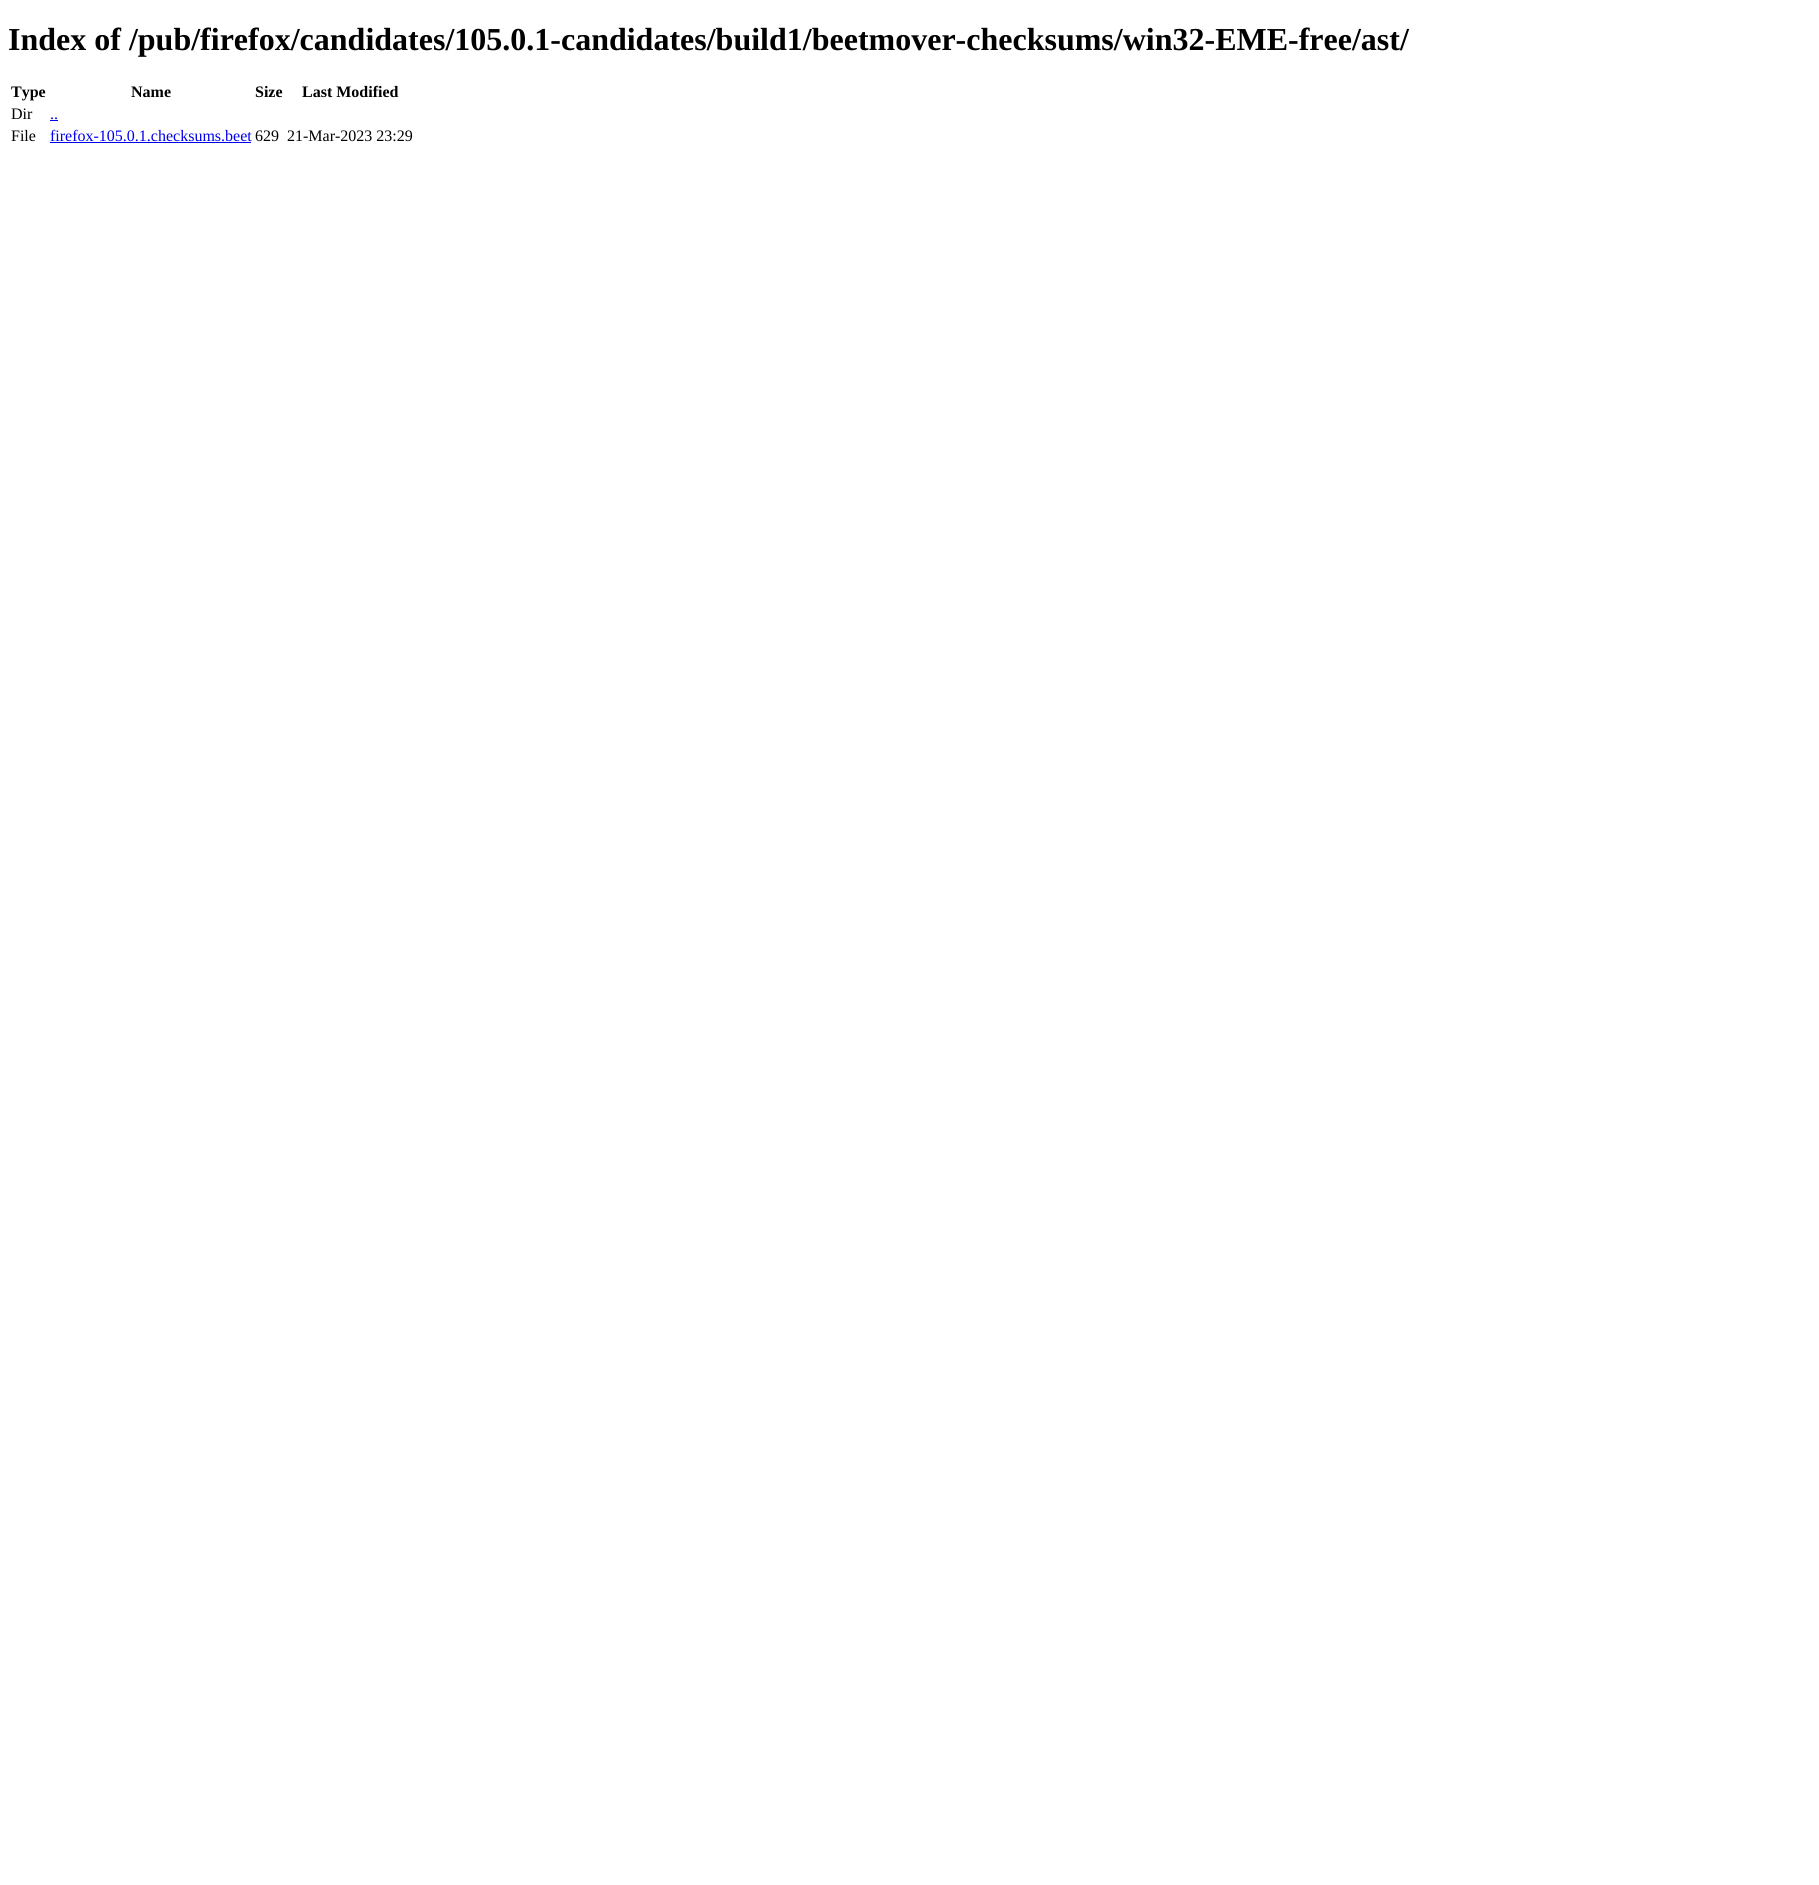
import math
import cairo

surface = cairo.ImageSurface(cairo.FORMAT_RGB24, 1819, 1885)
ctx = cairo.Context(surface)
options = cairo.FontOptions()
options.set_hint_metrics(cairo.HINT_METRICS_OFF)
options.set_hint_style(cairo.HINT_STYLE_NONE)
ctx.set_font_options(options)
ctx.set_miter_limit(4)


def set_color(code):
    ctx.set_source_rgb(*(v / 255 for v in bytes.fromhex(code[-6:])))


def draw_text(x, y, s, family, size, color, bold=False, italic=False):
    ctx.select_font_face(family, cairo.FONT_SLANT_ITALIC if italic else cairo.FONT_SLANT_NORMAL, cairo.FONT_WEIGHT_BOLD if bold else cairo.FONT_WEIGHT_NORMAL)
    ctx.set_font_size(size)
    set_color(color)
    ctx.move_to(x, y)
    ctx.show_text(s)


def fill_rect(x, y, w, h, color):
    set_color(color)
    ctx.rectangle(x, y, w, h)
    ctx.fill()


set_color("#ffffff")
ctx.paint()
draw_text(8, 50, "Index of /pub/firefox/candidates/105.0.1-candidates/build1/beetmover-checksums/win32-EME-free/ast/", "Liberation Serif", 32, "#000000", bold=True)
draw_text(11, 97, "Type", "Liberation Serif", 16, "#000000", bold=True)
draw_text(131, 97, "Name", "Liberation Serif", 16, "#000000", bold=True)
draw_text(255, 97, "Size", "Liberation Serif", 16, "#000000", bold=True)
draw_text(302, 97, "Last Modified", "Liberation Serif", 16, "#000000", bold=True)
draw_text(11, 119, "Dir", "Liberation Serif", 16, "#000000")
draw_text(50, 119, "..", "Liberation Serif", 16, "#0000ee")
fill_rect(50, 120, 8, 1, "#0000ee")
draw_text(11, 141, "File", "Liberation Serif", 16, "#000000")
draw_text(50, 141, "firefox-105.0.1.checksums.beet", "Liberation Serif", 16, "#0000ee")
fill_rect(50, 142, 201, 1, "#0000ee")
draw_text(255, 141, "629", "Liberation Serif", 16, "#000000")
draw_text(287, 141, "21-Mar-2023 23:29", "Liberation Serif", 16, "#000000")
surface.write_to_png("output.png")
